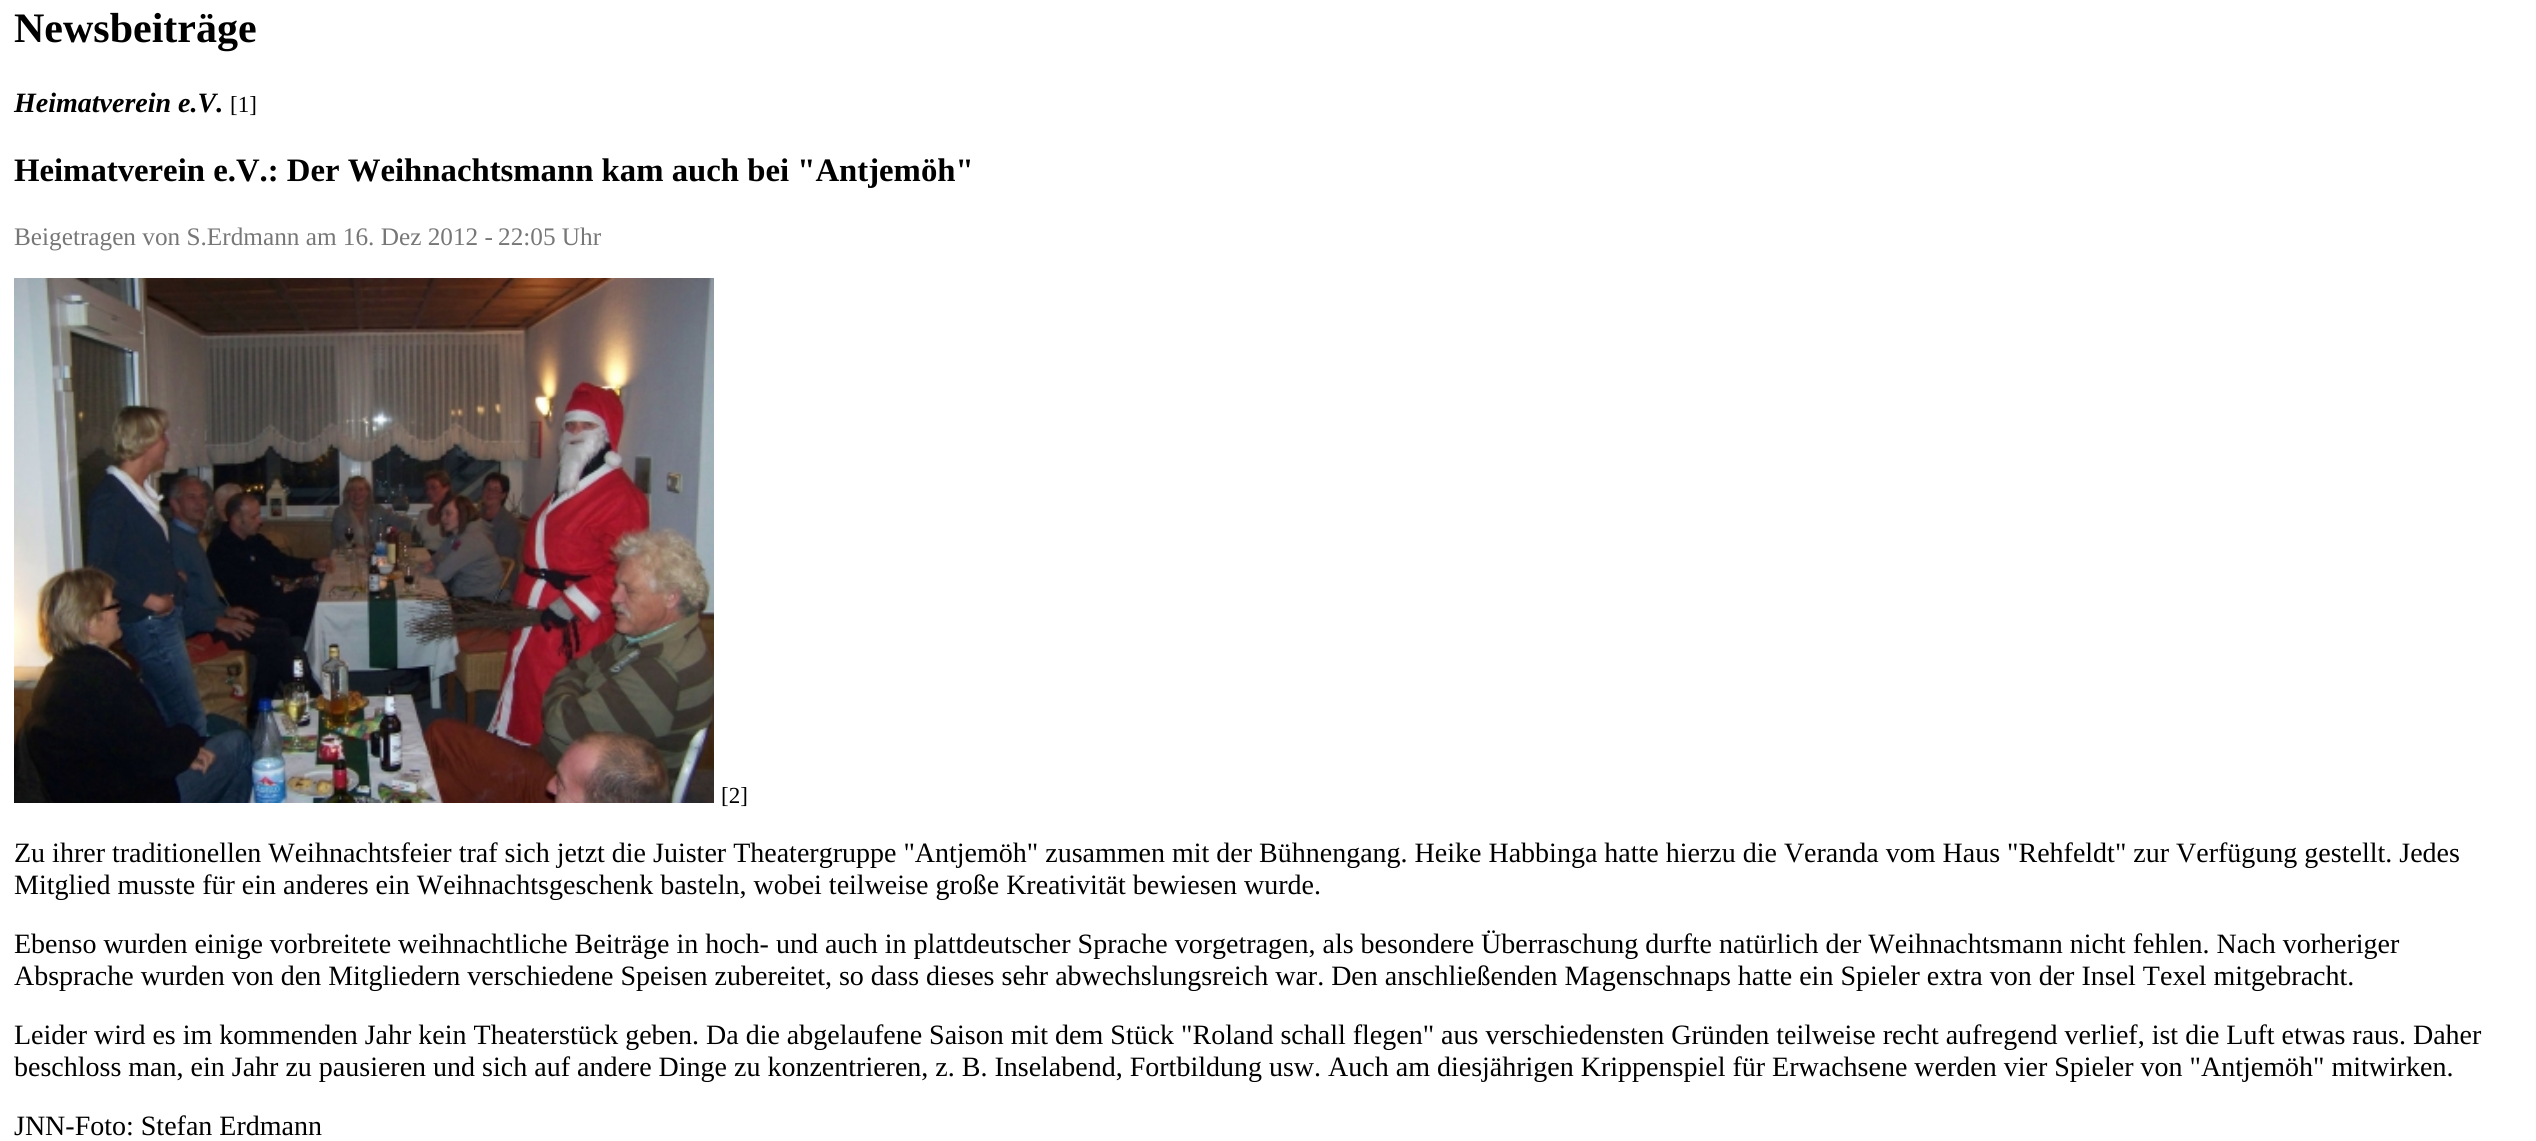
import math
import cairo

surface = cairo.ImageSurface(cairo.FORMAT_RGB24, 2536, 1141)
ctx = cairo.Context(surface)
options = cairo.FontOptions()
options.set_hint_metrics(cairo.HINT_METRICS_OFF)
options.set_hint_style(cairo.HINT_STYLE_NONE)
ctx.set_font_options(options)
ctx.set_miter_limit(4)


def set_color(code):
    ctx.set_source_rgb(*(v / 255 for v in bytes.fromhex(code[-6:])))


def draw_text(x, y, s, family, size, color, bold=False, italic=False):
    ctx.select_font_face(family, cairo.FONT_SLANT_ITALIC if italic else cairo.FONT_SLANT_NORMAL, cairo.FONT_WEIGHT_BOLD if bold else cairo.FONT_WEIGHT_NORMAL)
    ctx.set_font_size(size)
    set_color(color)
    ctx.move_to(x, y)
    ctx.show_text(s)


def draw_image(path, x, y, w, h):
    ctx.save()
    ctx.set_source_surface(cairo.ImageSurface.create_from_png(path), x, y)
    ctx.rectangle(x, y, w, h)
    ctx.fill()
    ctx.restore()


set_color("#ffffff")
ctx.paint()
draw_text(14, 42, "Newsbeiträge", "Liberation Serif", 42, "#000000", bold=True)
draw_text(14, 112, "Heimatverein e.V.", "Liberation Serif", 28, "#000000", bold=True, italic=True)
draw_text(230, 112, "[1]", "Liberation Serif", 23, "#000000")
draw_text(14, 181, "Heimatverein e.V.: Der Weihnachtsmann kam auch bei \"Antjemöh\"", "Liberation Serif", 32.75, "#000000", bold=True)
draw_text(14, 245, "Beigetragen von S.Erdmann am 16. Dez 2012 -", "Liberation Serif", 25.25, "#777777")
draw_text(498, 245, "22:05 Uhr", "Liberation Serif", 25.25, "#777777")
draw_image("assets/img1.png", 14, 278, 700, 525)
draw_text(721, 803, "[2]", "Liberation Serif", 23, "#000000")
draw_text(14, 862, "Zu ihrer traditionellen Weihnachtsfeier traf sich jetzt die Juister Theatergruppe \"Antjemöh\" zusammen mit der Bühnengang. Heike Habbinga hatte hierzu die Veranda vom Haus \"Rehfeldt\" zur Verfügung gestellt. Jedes", "Liberation Serif", 28, "#000000")
draw_text(14, 894, "Mitglied musste für ein anderes ein Weihnachtsgeschenk basteln, wobei teilweise große Kreativität bewiesen wurde.", "Liberation Serif", 28, "#000000")
draw_text(14, 953, "Ebenso wurden einige vorbreitete weihnachtliche Beiträge in hoch- und auch in plattdeutscher Sprache vorgetragen, als besondere Überraschung durfte natürlich der Weihnachtsmann nicht fehlen. Nach vorheriger", "Liberation Serif", 28, "#000000")
draw_text(14, 985, "Absprache wurden von den Mitgliedern verschiedene Speisen zubereitet, so dass dieses sehr abwechslungsreich war. Den anschließenden Magenschnaps hatte ein Spieler extra von der Insel Texel mitgebracht.", "Liberation Serif", 28, "#000000")
draw_text(14, 1044, "Leider wird es im kommenden Jahr kein Theaterstück geben. Da die abgelaufene Saison mit dem Stück \"Roland schall flegen\" aus verschiedensten Gründen teilweise recht aufregend verlief, ist die Luft etwas raus. Daher", "Liberation Serif", 28, "#000000")
draw_text(14, 1076, "beschloss man, ein Jahr zu pausieren und sich auf andere Dinge zu konzentrieren, z. B. Inselabend, Fortbildung usw. Auch am diesjährigen Krippenspiel für Erwachsene werden vier Spieler von \"Antjemöh\" mitwirken.", "Liberation Serif", 28, "#000000")
draw_text(14, 1135, "JNN-Foto: Stefan Erdmann", "Liberation Serif", 28, "#000000")
surface.write_to_png("output.png")
